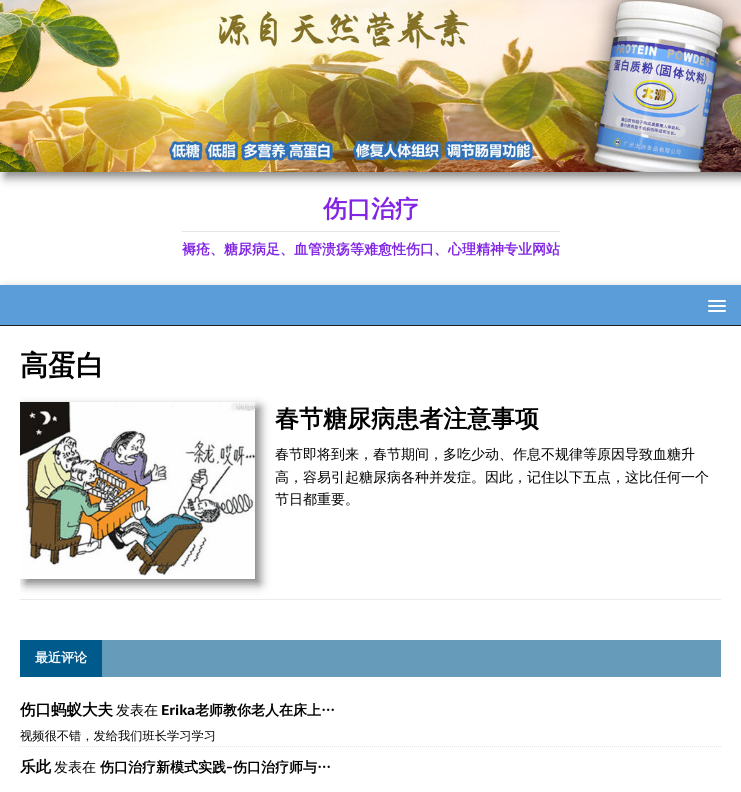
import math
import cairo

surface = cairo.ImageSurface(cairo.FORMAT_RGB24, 741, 792)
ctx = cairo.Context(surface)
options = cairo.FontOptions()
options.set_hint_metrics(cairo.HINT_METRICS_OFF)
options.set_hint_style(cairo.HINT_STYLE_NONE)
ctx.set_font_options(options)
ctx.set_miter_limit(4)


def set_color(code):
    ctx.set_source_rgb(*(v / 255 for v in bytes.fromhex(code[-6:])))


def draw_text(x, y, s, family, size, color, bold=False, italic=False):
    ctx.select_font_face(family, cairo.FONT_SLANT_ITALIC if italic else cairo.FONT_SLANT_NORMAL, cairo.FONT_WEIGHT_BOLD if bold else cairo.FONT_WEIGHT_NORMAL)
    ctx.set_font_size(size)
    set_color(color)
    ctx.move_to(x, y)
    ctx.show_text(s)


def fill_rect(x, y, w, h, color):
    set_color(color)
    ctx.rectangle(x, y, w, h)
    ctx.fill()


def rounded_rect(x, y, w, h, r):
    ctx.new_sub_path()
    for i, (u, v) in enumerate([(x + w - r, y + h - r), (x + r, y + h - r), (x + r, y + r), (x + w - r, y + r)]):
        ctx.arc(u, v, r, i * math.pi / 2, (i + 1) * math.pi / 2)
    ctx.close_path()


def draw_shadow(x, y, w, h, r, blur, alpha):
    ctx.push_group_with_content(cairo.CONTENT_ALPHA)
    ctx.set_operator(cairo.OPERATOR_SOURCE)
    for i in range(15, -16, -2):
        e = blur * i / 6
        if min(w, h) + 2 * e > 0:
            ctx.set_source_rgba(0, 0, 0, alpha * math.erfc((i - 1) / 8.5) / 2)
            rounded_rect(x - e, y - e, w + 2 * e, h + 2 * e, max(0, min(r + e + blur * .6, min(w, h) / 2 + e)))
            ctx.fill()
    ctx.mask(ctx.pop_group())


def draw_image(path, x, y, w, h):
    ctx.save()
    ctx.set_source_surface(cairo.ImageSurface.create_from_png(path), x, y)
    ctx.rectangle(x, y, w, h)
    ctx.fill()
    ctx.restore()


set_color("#ffffff")
ctx.paint()
set_color("#808080")
draw_shadow(5, 5, 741, 172, 0, 5, 1)
draw_image("assets/img1.png", 0, 0, 741, 172)
draw_text(323, 217, "伤口治疗", "WenQuanYi Zen Hei", 24, "#8224e3", bold=True)
fill_rect(182, 231, 378, 1, "#e5e5e5")
draw_text(182, 254, "褥疮、糖尿病足、血管溃疡等难愈性伤口、心理精神专业网站", "WenQuanYi Zen Hei", 14, "#8224e3", bold=True)
set_color("#808080")
draw_shadow(5, 290, 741, 41, 0, 5, 1)
fill_rect(0, 285, 741, 40, "#5b9dd9")
fill_rect(0, 325, 741, 1, "#1f1e1e")
set_color("#ffffff")
rounded_rect(708, 300, 18, 2, 1)
ctx.fill()
rounded_rect(708, 305, 18, 2, 1)
ctx.fill()
rounded_rect(708, 310, 18, 2, 1)
ctx.fill()
fill_rect(0, 326, 741, 15, "#ffffff")
draw_text(20, 375, "高蛋白", "WenQuanYi Zen Hei", 28, "#000000", bold=True)
fill_rect(20, 599, 701, 1, "#ebebeb")
ctx.save()
ctx.rectangle(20, 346, 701, 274)
ctx.clip()
ctx.set_fill_rule(cairo.FILL_RULE_EVEN_ODD)
ctx.new_path()
ctx.move_to(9, 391)
ctx.line_to(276, 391)
ctx.line_to(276, 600)
ctx.line_to(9, 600)
ctx.close_path()
ctx.move_to(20, 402)
ctx.line_to(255, 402)
ctx.line_to(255, 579)
ctx.line_to(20, 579)
ctx.close_path()
ctx.clip()
set_color("#808080")
draw_shadow(25, 407, 235, 177, 0, 5, 1)
ctx.restore()
draw_image("assets/img2.png", 20, 402, 235, 174)
draw_text(275, 427, "春节糖尿病患者注意事项", "WenQuanYi Zen Hei", 24, "#000000", bold=True)
draw_text(275, 459, "春节即将到来，春节期间，多吃少动、作息不规律等原因导致血糖升", "WenQuanYi Zen Hei Medium", 14, "#000000")
draw_text(275, 482, "高，容易引起糖尿病各种并发症。因此，记住以下五点，这比任何一个", "WenQuanYi Zen Hei Medium", 14, "#000000")
draw_text(275, 504, "节日都重要。", "WenQuanYi Zen Hei Medium", 14, "#000000")
fill_rect(102, 640, 619, 37, "#669cba")
fill_rect(20, 640, 82, 37, "#005a8c")
draw_text(35, 662, "最近评论", "WenQuanYi Zen Hei", 13, "#ffffff", bold=True)
draw_text(20, 715, "伤口蚂蚁大夫", "WenQuanYi Zen Hei", 15.5, "#000000", bold=True)
draw_text(116, 715, "发表在", "WenQuanYi Zen Hei Medium", 14, "#000000")
draw_text(161, 715, "Erika", "Sarala", 14, "#000000", bold=True)
draw_text(195, 715, "老师教你老人在床上…", "WenQuanYi Zen Hei", 14, "#000000", bold=True)
ctx.new_path()
ctx.move_to(20, 746.5)
ctx.line_to(721, 746.5)
set_color("#e5e5e5")
ctx.set_line_width(1)
ctx.set_dash([1, 1])
ctx.stroke()
draw_text(20, 740, "视频很不错，发给我们班长学习学习", "WenQuanYi Zen Hei Medium", 12.25, "#000000")
draw_text(20, 772, "乐此", "WenQuanYi Zen Hei", 15.5, "#000000", bold=True)
draw_text(54, 772, "发表在", "WenQuanYi Zen Hei Medium", 14, "#000000")
draw_text(100, 772, "伤口治疗新模式实践", "WenQuanYi Zen Hei", 14, "#000000", bold=True)
draw_text(226, 772, "-", "Sarala", 14, "#000000", bold=True)
draw_text(233, 772, "伤口治疗师与…", "WenQuanYi Zen Hei", 14, "#000000", bold=True)
surface.write_to_png("output.png")
